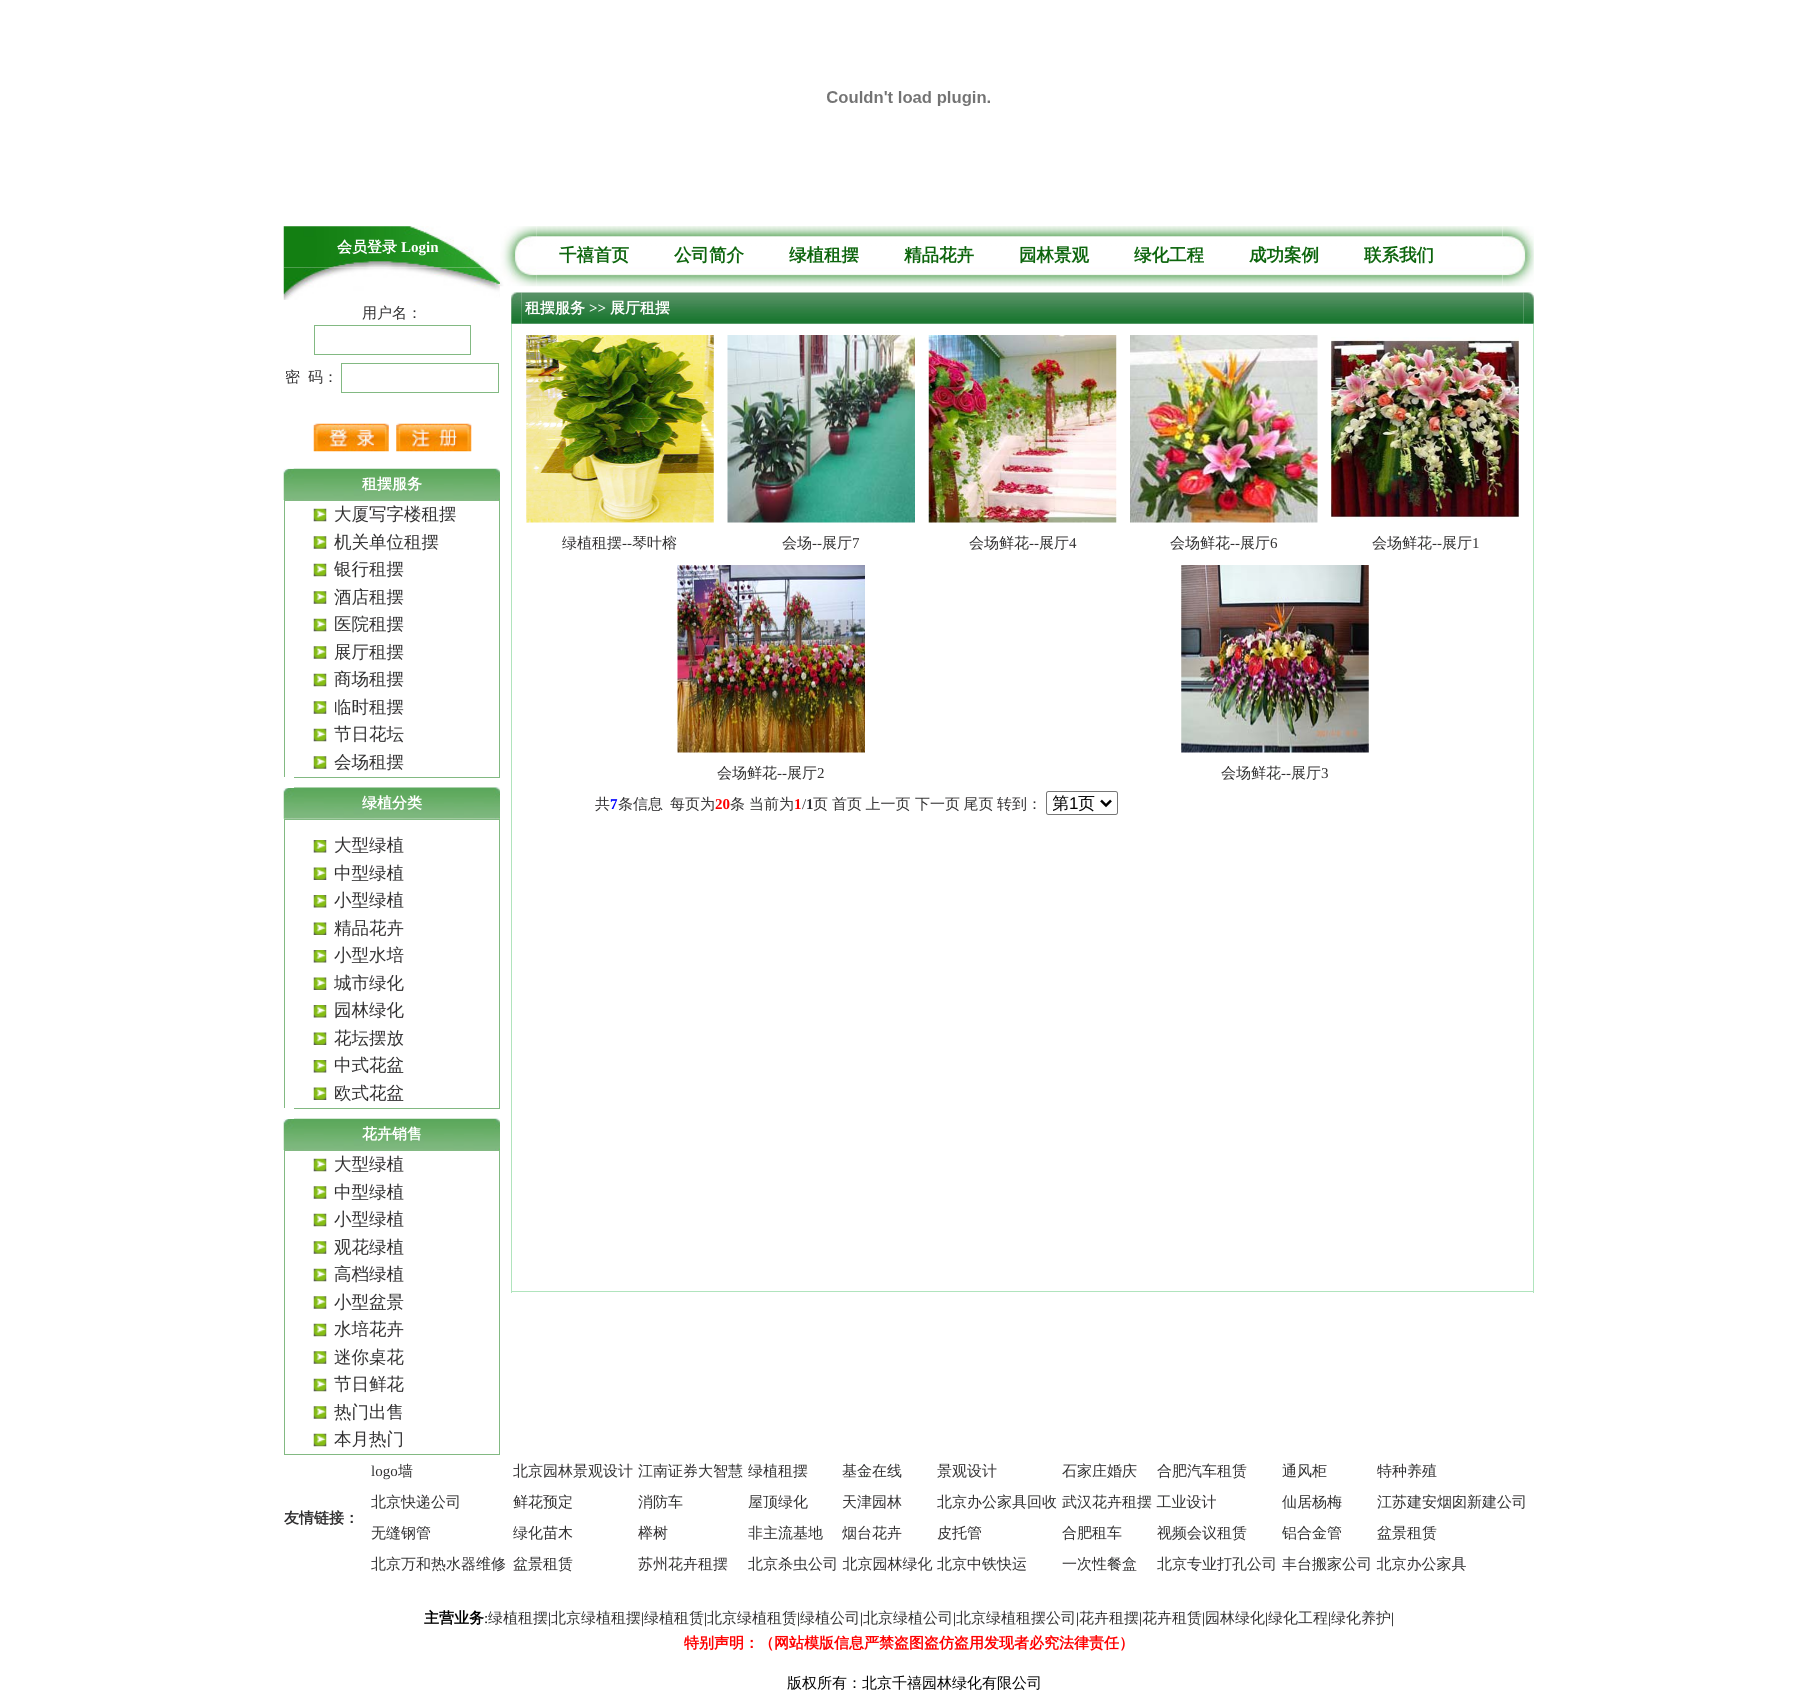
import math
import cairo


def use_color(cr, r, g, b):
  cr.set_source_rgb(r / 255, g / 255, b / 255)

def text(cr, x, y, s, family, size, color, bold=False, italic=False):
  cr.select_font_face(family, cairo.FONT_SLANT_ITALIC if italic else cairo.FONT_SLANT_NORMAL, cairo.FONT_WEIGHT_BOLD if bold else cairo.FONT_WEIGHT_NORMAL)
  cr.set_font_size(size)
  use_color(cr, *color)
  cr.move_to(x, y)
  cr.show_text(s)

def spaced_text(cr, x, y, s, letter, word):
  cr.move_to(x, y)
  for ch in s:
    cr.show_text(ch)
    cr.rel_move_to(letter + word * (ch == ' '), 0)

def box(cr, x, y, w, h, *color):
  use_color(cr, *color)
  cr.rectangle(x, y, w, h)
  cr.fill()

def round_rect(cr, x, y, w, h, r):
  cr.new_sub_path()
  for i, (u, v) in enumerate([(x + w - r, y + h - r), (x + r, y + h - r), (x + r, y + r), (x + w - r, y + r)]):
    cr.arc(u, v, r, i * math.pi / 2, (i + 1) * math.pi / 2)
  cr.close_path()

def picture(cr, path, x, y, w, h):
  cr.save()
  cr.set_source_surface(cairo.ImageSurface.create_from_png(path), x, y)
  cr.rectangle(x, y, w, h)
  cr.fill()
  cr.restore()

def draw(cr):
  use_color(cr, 255, 255, 255)
  cr.paint()
  picture(cr, "img_01.png", 827, 91, 163, 15)
  picture(cr, "img_02.png", 283, 226, 205, 42)
  picture(cr, "img_03.png", 283, 267, 217, 33)
  cr.rectangle(314.5, 325.5, 156, 29)
  use_color(cr, 130, 185, 130)
  cr.set_line_width(1)
  cr.stroke()
  cr.rectangle(341.5, 363.5, 157, 29)
  cr.stroke()
  picture(cr, "img_04.png", 313, 423, 76, 29)
  picture(cr, "img_05.png", 396, 423, 76, 29)
  picture(cr, "img_07.png", 283, 468, 217, 32)
  picture(cr, "img_06.png", 286, 468, 8, 1)
  cr.rectangle(284.5, 500.5, 215, 277)
  cr.stroke()
  picture(cr, "img_08.png", 313, 508, 14, 14)
  picture(cr, "img_09.png", 313, 536, 14, 13)
  picture(cr, "img_08.png", 313, 563, 14, 14)
  picture(cr, "img_09.png", 313, 591, 14, 13)
  picture(cr, "img_08.png", 313, 618, 14, 14)
  picture(cr, "img_09.png", 313, 646, 14, 13)
  picture(cr, "img_08.png", 313, 673, 14, 14)
  picture(cr, "img_09.png", 313, 701, 14, 13)
  picture(cr, "img_08.png", 313, 728, 14, 14)
  picture(cr, "img_09.png", 313, 756, 14, 13)
  picture(cr, "img_10.png", 283, 787, 217, 32)
  box(cr, 284, 777, 10, 11, 255, 255, 255)
  cr.rectangle(284.5, 819.5, 215, 289)
  use_color(cr, 130, 185, 130)
  cr.stroke()
  picture(cr, "img_11.png", 313, 840, 14, 13)
  picture(cr, "img_12.png", 313, 867, 14, 13)
  picture(cr, "img_11.png", 313, 895, 14, 13)
  picture(cr, "img_12.png", 313, 922, 14, 13)
  picture(cr, "img_11.png", 313, 950, 14, 13)
  picture(cr, "img_12.png", 313, 977, 14, 13)
  picture(cr, "img_11.png", 313, 1005, 14, 13)
  picture(cr, "img_12.png", 313, 1032, 14, 13)
  picture(cr, "img_11.png", 313, 1060, 14, 13)
  picture(cr, "img_12.png", 313, 1087, 14, 13)
  picture(cr, "img_07.png", 283, 1118, 217, 32)
  box(cr, 284, 1108, 10, 11, 255, 255, 255)
  cr.rectangle(284.5, 1150.5, 215, 304)
  use_color(cr, 130, 185, 130)
  cr.stroke()
  picture(cr, "img_08.png", 313, 1158, 14, 14)
  picture(cr, "img_09.png", 313, 1186, 14, 13)
  picture(cr, "img_08.png", 313, 1213, 14, 14)
  picture(cr, "img_09.png", 313, 1241, 14, 13)
  picture(cr, "img_08.png", 313, 1268, 14, 14)
  picture(cr, "img_09.png", 313, 1296, 14, 13)
  picture(cr, "img_08.png", 313, 1323, 14, 14)
  picture(cr, "img_09.png", 313, 1351, 14, 13)
  picture(cr, "img_08.png", 313, 1378, 14, 14)
  picture(cr, "img_09.png", 313, 1406, 14, 13)
  picture(cr, "img_08.png", 313, 1433, 14, 14)
  picture(cr, "img_14.png", 536, 226, 967, 61)
  picture(cr, "img_13.png", 500, 226, 37, 61)
  picture(cr, "img_15.png", 1502, 226, 32, 61)
  picture(cr, "img_17.png", 521, 292, 1003, 32)
  picture(cr, "img_16.png", 511, 292, 11, 32)
  picture(cr, "img_18.png", 1523, 292, 11, 32)
  box(cr, 1533, 324, 1, 969, 176, 228, 189)
  box(cr, 511, 1291, 1023, 1, 176, 228, 189)
  box(cr, 511, 324, 1, 969, 176, 228, 189)
  picture(cr, "img_19.png", 526, 335, 188, 188)
  picture(cr, "img_20.png", 727, 335, 188, 188)
  picture(cr, "img_21.png", 928, 335, 189, 188)
  picture(cr, "img_22.png", 1130, 335, 188, 188)
  picture(cr, "img_23.png", 1331, 337, 188, 183)
  picture(cr, "img_24.png", 677, 565, 188, 188)
  picture(cr, "img_25.png", 1181, 565, 188, 188)
  round_rect(cr, 1046.5, 791.5, 71, 23, 2)
  use_color(cr, 118, 118, 118)
  cr.stroke()
  cr.new_path()
  cr.move_to(1101, 800.5)
  cr.line_to(1106, 805.5)
  cr.line_to(1111, 800.5)
  use_color(cr, 0, 0, 0)
  cr.set_line_width(2.5)
  cr.stroke()
  text(cr, 337, 252, "会员登录", "WenQuanYi Zen Hei", 15, (255, 255, 255), bold=True)
  text(cr, 401, 252, "Login", "Liberation Serif", 15, (255, 255, 255), bold=True)
  text(cr, 362, 318, "用户名：", "WenQuanYi Zen Hei Medium", 15, (49, 48, 49))
  text(cr, 285, 382, "密", "WenQuanYi Zen Hei Medium", 15, (49, 48, 49))
  text(cr, 308, 382, "码：", "WenQuanYi Zen Hei Medium", 15, (49, 48, 49))
  text(cr, 362, 489, "租摆服务", "WenQuanYi Zen Hei", 15, (255, 255, 255), bold=True)
  text(cr, 334, 520, "大厦写字楼租摆", "WenQuanYi Zen Hei Medium", 17.5, (49, 48, 49))
  text(cr, 334, 548, "机关单位租摆", "WenQuanYi Zen Hei Medium", 17.5, (49, 48, 49))
  text(cr, 334, 575, "银行租摆", "WenQuanYi Zen Hei Medium", 17.5, (49, 48, 49))
  text(cr, 334, 603, "酒店租摆", "WenQuanYi Zen Hei Medium", 17.5, (49, 48, 49))
  text(cr, 334, 630, "医院租摆", "WenQuanYi Zen Hei Medium", 17.5, (49, 48, 49))
  text(cr, 334, 658, "展厅租摆", "WenQuanYi Zen Hei Medium", 17.5, (49, 48, 49))
  text(cr, 334, 685, "商场租摆", "WenQuanYi Zen Hei Medium", 17.5, (49, 48, 49))
  text(cr, 334, 713, "临时租摆", "WenQuanYi Zen Hei Medium", 17.5, (49, 48, 49))
  text(cr, 334, 740, "节日花坛", "WenQuanYi Zen Hei Medium", 17.5, (49, 48, 49))
  text(cr, 334, 768, "会场租摆", "WenQuanYi Zen Hei Medium", 17.5, (49, 48, 49))
  text(cr, 362, 808, "绿植分类", "WenQuanYi Zen Hei", 15, (255, 255, 255), bold=True)
  text(cr, 334, 851, "大型绿植", "WenQuanYi Zen Hei Medium", 17.5, (49, 48, 49))
  text(cr, 334, 879, "中型绿植", "WenQuanYi Zen Hei Medium", 17.5, (49, 48, 49))
  text(cr, 334, 906, "小型绿植", "WenQuanYi Zen Hei Medium", 17.5, (49, 48, 49))
  text(cr, 334, 934, "精品花卉", "WenQuanYi Zen Hei Medium", 17.5, (49, 48, 49))
  text(cr, 334, 961, "小型水培", "WenQuanYi Zen Hei Medium", 17.5, (49, 48, 49))
  text(cr, 334, 989, "城市绿化", "WenQuanYi Zen Hei Medium", 17.5, (49, 48, 49))
  text(cr, 334, 1016, "园林绿化", "WenQuanYi Zen Hei Medium", 17.5, (49, 48, 49))
  text(cr, 334, 1044, "花坛摆放", "WenQuanYi Zen Hei Medium", 17.5, (49, 48, 49))
  text(cr, 334, 1071, "中式花盆", "WenQuanYi Zen Hei Medium", 17.5, (49, 48, 49))
  text(cr, 334, 1099, "欧式花盆", "WenQuanYi Zen Hei Medium", 17.5, (49, 48, 49))
  text(cr, 362, 1139, "花卉销售", "WenQuanYi Zen Hei", 15, (255, 255, 255), bold=True)
  text(cr, 334, 1170, "大型绿植", "WenQuanYi Zen Hei Medium", 17.5, (49, 48, 49))
  text(cr, 334, 1198, "中型绿植", "WenQuanYi Zen Hei Medium", 17.5, (49, 48, 49))
  text(cr, 334, 1225, "小型绿植", "WenQuanYi Zen Hei Medium", 17.5, (49, 48, 49))
  text(cr, 334, 1253, "观花绿植", "WenQuanYi Zen Hei Medium", 17.5, (49, 48, 49))
  text(cr, 334, 1280, "高档绿植", "WenQuanYi Zen Hei Medium", 17.5, (49, 48, 49))
  text(cr, 334, 1308, "小型盆景", "WenQuanYi Zen Hei Medium", 17.5, (49, 48, 49))
  text(cr, 334, 1335, "水培花卉", "WenQuanYi Zen Hei Medium", 17.5, (49, 48, 49))
  text(cr, 334, 1363, "迷你桌花", "WenQuanYi Zen Hei Medium", 17.5, (49, 48, 49))
  text(cr, 334, 1390, "节日鲜花", "WenQuanYi Zen Hei Medium", 17.5, (49, 48, 49))
  text(cr, 334, 1418, "热门出售", "WenQuanYi Zen Hei Medium", 17.5, (49, 48, 49))
  text(cr, 334, 1445, "本月热门", "WenQuanYi Zen Hei Medium", 17.5, (49, 48, 49))
  text(cr, 559, 261, "千禧首页", "WenQuanYi Zen Hei", 17.5, (13, 101, 13), bold=True)
  text(cr, 674, 261, "公司简介", "WenQuanYi Zen Hei", 17.5, (13, 101, 13), bold=True)
  text(cr, 789, 261, "绿植租摆", "WenQuanYi Zen Hei", 17.5, (13, 101, 13), bold=True)
  text(cr, 904, 261, "精品花卉", "WenQuanYi Zen Hei", 17.5, (13, 101, 13), bold=True)
  text(cr, 1019, 261, "园林景观", "WenQuanYi Zen Hei", 17.5, (13, 101, 13), bold=True)
  text(cr, 1134, 261, "绿化工程", "WenQuanYi Zen Hei", 17.5, (13, 101, 13), bold=True)
  text(cr, 1249, 261, "成功案例", "WenQuanYi Zen Hei", 17.5, (13, 101, 13), bold=True)
  text(cr, 1364, 261, "联系我们", "WenQuanYi Zen Hei", 17.5, (13, 101, 13), bold=True)
  text(cr, 525, 313, "租摆服务", "WenQuanYi Zen Hei", 15, (255, 255, 255), bold=True)
  text(cr, 589, 313, ">>", "Liberation Serif", 15, (255, 255, 255), bold=True)
  text(cr, 610, 313, "展厅租摆", "WenQuanYi Zen Hei", 15, (255, 255, 255), bold=True)
  text(cr, 562, 548, "绿植租摆", "WenQuanYi Zen Hei Medium", 15, (49, 48, 49))
  text(cr, 622, 548, "--", "Liberation Serif", 15, (49, 48, 49))
  text(cr, 632, 548, "琴叶榕", "WenQuanYi Zen Hei Medium", 15, (49, 48, 49))
  text(cr, 782, 548, "会场", "WenQuanYi Zen Hei Medium", 15, (49, 48, 49))
  text(cr, 812, 548, "--", "Liberation Serif", 15, (49, 48, 49))
  text(cr, 822, 548, "展厅", "WenQuanYi Zen Hei Medium", 15, (49, 48, 49))
  text(cr, 852, 548, "7", "Liberation Serif", 15, (49, 48, 49))
  text(cr, 969, 548, "会场鲜花", "WenQuanYi Zen Hei Medium", 15, (49, 48, 49))
  text(cr, 1029, 548, "--", "Liberation Serif", 15, (49, 48, 49))
  text(cr, 1039, 548, "展厅", "WenQuanYi Zen Hei Medium", 15, (49, 48, 49))
  text(cr, 1069, 548, "4", "Liberation Serif", 15, (49, 48, 49))
  text(cr, 1170, 548, "会场鲜花", "WenQuanYi Zen Hei Medium", 15, (49, 48, 49))
  text(cr, 1230, 548, "--", "Liberation Serif", 15, (49, 48, 49))
  text(cr, 1240, 548, "展厅", "WenQuanYi Zen Hei Medium", 15, (49, 48, 49))
  text(cr, 1270, 548, "6", "Liberation Serif", 15, (49, 48, 49))
  text(cr, 1372, 548, "会场鲜花", "WenQuanYi Zen Hei Medium", 15, (49, 48, 49))
  text(cr, 1432, 548, "--", "Liberation Serif", 15, (49, 48, 49))
  text(cr, 1442, 548, "展厅", "WenQuanYi Zen Hei Medium", 15, (49, 48, 49))
  text(cr, 1472, 548, "1", "Liberation Serif", 15, (49, 48, 49))
  text(cr, 717, 778, "会场鲜花", "WenQuanYi Zen Hei Medium", 15, (49, 48, 49))
  text(cr, 777, 778, "--", "Liberation Serif", 15, (49, 48, 49))
  text(cr, 787, 778, "展厅", "WenQuanYi Zen Hei Medium", 15, (49, 48, 49))
  text(cr, 817, 778, "2", "Liberation Serif", 15, (49, 48, 49))
  text(cr, 1221, 778, "会场鲜花", "WenQuanYi Zen Hei Medium", 15, (49, 48, 49))
  text(cr, 1281, 778, "--", "Liberation Serif", 15, (49, 48, 49))
  text(cr, 1291, 778, "展厅", "WenQuanYi Zen Hei Medium", 15, (49, 48, 49))
  text(cr, 1321, 778, "3", "Liberation Serif", 15, (49, 48, 49))
  text(cr, 595, 809, "共", "WenQuanYi Zen Hei Medium", 15, (49, 48, 49))
  text(cr, 610, 809, "7", "Liberation Serif", 15, (0, 0, 255), bold=True)
  text(cr, 618, 809, "条信息", "WenQuanYi Zen Hei Medium", 15, (49, 48, 49))
  text(cr, 670, 809, "每页为", "WenQuanYi Zen Hei Medium", 15, (49, 48, 49))
  text(cr, 715, 809, "20", "Liberation Serif", 15, (255, 0, 0), bold=True)
  text(cr, 730, 809, "条", "WenQuanYi Zen Hei Medium", 15, (49, 48, 49))
  text(cr, 749, 809, "当前为", "WenQuanYi Zen Hei Medium", 15, (49, 48, 49))
  text(cr, 794, 809, "1", "Liberation Serif", 15, (255, 0, 0), bold=True)
  text(cr, 802, 809, "/", "Liberation Serif", 15, (49, 48, 49))
  text(cr, 806, 809, "1", "Liberation Serif", 15, (49, 48, 49), bold=True)
  text(cr, 813, 809, "页", "WenQuanYi Zen Hei Medium", 15, (49, 48, 49))
  spaced_text(cr, 832, 809, "首页 上一页", 0, -1)
  spaced_text(cr, 915, 809, "下一页 尾页", 0, -1)
  text(cr, 997, 809, "转到：", "WenQuanYi Zen Hei Medium", 15, (49, 48, 49))
  cr.save()
  cr.rectangle(1053, 793, 43, 21)
  cr.clip()
  text(cr, 1052, 809, "第", "WenQuanYi Zen Hei Medium", 17, (0, 0, 0))
  cr.restore()
  text(cr, 1069, 809, "1", "Liberation Sans", 17, (0, 0, 0))
  text(cr, 1078, 809, "页", "WenQuanYi Zen Hei Medium", 17, (0, 0, 0))
  text(cr, 284, 1523, "友情链接：", "WenQuanYi Zen Hei", 15, (49, 48, 49), bold=True)
  text(cr, 371, 1476, "logo", "Liberation Serif", 15, (49, 48, 49))
  text(cr, 398, 1476, "墙", "WenQuanYi Zen Hei Medium", 15, (49, 48, 49))
  text(cr, 513, 1476, "北京园林景观设计", "WenQuanYi Zen Hei Medium", 15, (49, 48, 49))
  text(cr, 638, 1476, "江南证券大智慧", "WenQuanYi Zen Hei Medium", 15, (49, 48, 49))
  text(cr, 748, 1476, "绿植租摆", "WenQuanYi Zen Hei Medium", 15, (49, 48, 49))
  text(cr, 842, 1476, "基金在线", "WenQuanYi Zen Hei Medium", 15, (49, 48, 49))
  text(cr, 937, 1476, "景观设计", "WenQuanYi Zen Hei Medium", 15, (49, 48, 49))
  text(cr, 1062, 1476, "石家庄婚庆", "WenQuanYi Zen Hei Medium", 15, (49, 48, 49))
  text(cr, 1157, 1476, "合肥汽车租赁", "WenQuanYi Zen Hei Medium", 15, (49, 48, 49))
  text(cr, 1282, 1476, "通风柜", "WenQuanYi Zen Hei Medium", 15, (49, 48, 49))
  text(cr, 1377, 1476, "特种养殖", "WenQuanYi Zen Hei Medium", 15, (49, 48, 49))
  text(cr, 371, 1507, "北京快递公司", "WenQuanYi Zen Hei Medium", 15, (49, 48, 49))
  text(cr, 513, 1507, "鲜花预定", "WenQuanYi Zen Hei Medium", 15, (49, 48, 49))
  text(cr, 638, 1507, "消防车", "WenQuanYi Zen Hei Medium", 15, (49, 48, 49))
  text(cr, 748, 1507, "屋顶绿化", "WenQuanYi Zen Hei Medium", 15, (49, 48, 49))
  text(cr, 842, 1507, "天津园林", "WenQuanYi Zen Hei Medium", 15, (49, 48, 49))
  text(cr, 937, 1507, "北京办公家具回收", "WenQuanYi Zen Hei Medium", 15, (49, 48, 49))
  text(cr, 1062, 1507, "武汉花卉租摆 工业设计", "WenQuanYi Zen Hei Medium", 15, (49, 48, 49))
  text(cr, 1282, 1507, "仙居杨梅", "WenQuanYi Zen Hei Medium", 15, (49, 48, 49))
  text(cr, 1377, 1507, "江苏建安烟囱新建公司", "WenQuanYi Zen Hei Medium", 15, (49, 48, 49))
  text(cr, 371, 1538, "无缝钢管", "WenQuanYi Zen Hei Medium", 15, (49, 48, 49))
  text(cr, 513, 1538, "绿化苗木", "WenQuanYi Zen Hei Medium", 15, (49, 48, 49))
  text(cr, 638, 1538, "榉树", "WenQuanYi Zen Hei Medium", 15, (49, 48, 49))
  text(cr, 748, 1538, "非主流基地", "WenQuanYi Zen Hei Medium", 15, (49, 48, 49))
  text(cr, 842, 1538, "烟台花卉", "WenQuanYi Zen Hei Medium", 15, (49, 48, 49))
  text(cr, 937, 1538, "皮托管", "WenQuanYi Zen Hei Medium", 15, (49, 48, 49))
  text(cr, 1062, 1538, "合肥租车", "WenQuanYi Zen Hei Medium", 15, (49, 48, 49))
  text(cr, 1157, 1538, "视频会议租赁", "WenQuanYi Zen Hei Medium", 15, (49, 48, 49))
  text(cr, 1282, 1538, "铝合金管", "WenQuanYi Zen Hei Medium", 15, (49, 48, 49))
  text(cr, 1377, 1538, "盆景租赁", "WenQuanYi Zen Hei Medium", 15, (49, 48, 49))
  text(cr, 371, 1569, "北京万和热水器维修", "WenQuanYi Zen Hei Medium", 15, (49, 48, 49))
  text(cr, 513, 1569, "盆景租赁", "WenQuanYi Zen Hei Medium", 15, (49, 48, 49))
  text(cr, 638, 1569, "苏州花卉租摆", "WenQuanYi Zen Hei Medium", 15, (49, 48, 49))
  text(cr, 748, 1569, "北京杀虫公司 北京园林绿化 北京中铁快运", "WenQuanYi Zen Hei Medium", 15, (49, 48, 49))
  text(cr, 1062, 1569, "一次性餐盒", "WenQuanYi Zen Hei Medium", 15, (49, 48, 49))
  text(cr, 1157, 1569, "北京专业打孔公司", "WenQuanYi Zen Hei Medium", 15, (49, 48, 49))
  text(cr, 1282, 1569, "丰台搬家公司 北京办公家具", "WenQuanYi Zen Hei Medium", 15, (49, 48, 49))
  text(cr, 424, 1623, "主营业务", "WenQuanYi Zen Hei", 15, (0, 0, 0), bold=True)
  text(cr, 484, 1623, ":", "Liberation Serif", 15, (0, 0, 0))
  text(cr, 488, 1623, "绿植租摆", "WenQuanYi Zen Hei Medium", 15, (49, 48, 49))
  text(cr, 548, 1623, "|", "Liberation Serif", 15, (0, 0, 0))
  text(cr, 551, 1623, "北京绿植租摆", "WenQuanYi Zen Hei Medium", 15, (49, 48, 49))
  text(cr, 641, 1623, "|", "Liberation Serif", 15, (0, 0, 0))
  text(cr, 644, 1623, "绿植租赁", "WenQuanYi Zen Hei Medium", 15, (49, 48, 49))
  text(cr, 704, 1623, "|", "Liberation Serif", 15, (0, 0, 0))
  text(cr, 707, 1623, "北京绿植租赁", "WenQuanYi Zen Hei Medium", 15, (49, 48, 49))
  text(cr, 797, 1623, "|", "Liberation Serif", 15, (0, 0, 0))
  text(cr, 800, 1623, "绿植公司", "WenQuanYi Zen Hei Medium", 15, (49, 48, 49))
  text(cr, 860, 1623, "|", "Liberation Serif", 15, (0, 0, 0))
  text(cr, 863, 1623, "北京绿植公司", "WenQuanYi Zen Hei Medium", 15, (49, 48, 49))
  text(cr, 953, 1623, "|", "Liberation Serif", 15, (0, 0, 0))
  text(cr, 956, 1623, "北京绿植租摆公司", "WenQuanYi Zen Hei Medium", 15, (49, 48, 49))
  text(cr, 1076, 1623, "|", "Liberation Serif", 15, (0, 0, 0))
  text(cr, 1079, 1623, "花卉租摆", "WenQuanYi Zen Hei Medium", 15, (49, 48, 49))
  text(cr, 1139, 1623, "|", "Liberation Serif", 15, (0, 0, 0))
  text(cr, 1142, 1623, "花卉租赁", "WenQuanYi Zen Hei Medium", 15, (49, 48, 49))
  text(cr, 1202, 1623, "|", "Liberation Serif", 15, (0, 0, 0))
  text(cr, 1205, 1623, "园林绿化", "WenQuanYi Zen Hei Medium", 15, (49, 48, 49))
  text(cr, 1265, 1623, "|", "Liberation Serif", 15, (0, 0, 0))
  text(cr, 1268, 1623, "绿化工程", "WenQuanYi Zen Hei Medium", 15, (49, 48, 49))
  text(cr, 1328, 1623, "|", "Liberation Serif", 15, (0, 0, 0))
  text(cr, 1331, 1623, "绿化养护", "WenQuanYi Zen Hei Medium", 15, (49, 48, 49))
  text(cr, 1391, 1623, "|", "Liberation Serif", 15, (0, 0, 0))
  text(cr, 684, 1648, "特别声明：（网站模版信息严禁盗图盗仿盗用发现者必究法律责任）", "WenQuanYi Zen Hei", 15, (255, 0, 0), bold=True)
  text(cr, 787, 1688, "版权所有：北京千禧园林绿化有限公司", "WenQuanYi Zen Hei Medium", 15, (0, 0, 0))


surface = cairo.ImageSurface(cairo.FORMAT_RGB24, 1817, 1707)
cr = cairo.Context(surface)
options = cairo.FontOptions()
options.set_hint_metrics(cairo.HINT_METRICS_OFF)
options.set_hint_style(cairo.HINT_STYLE_NONE)
cr.set_font_options(options)
cr.set_miter_limit(4)
draw(cr)
surface.write_to_png("out.png")
